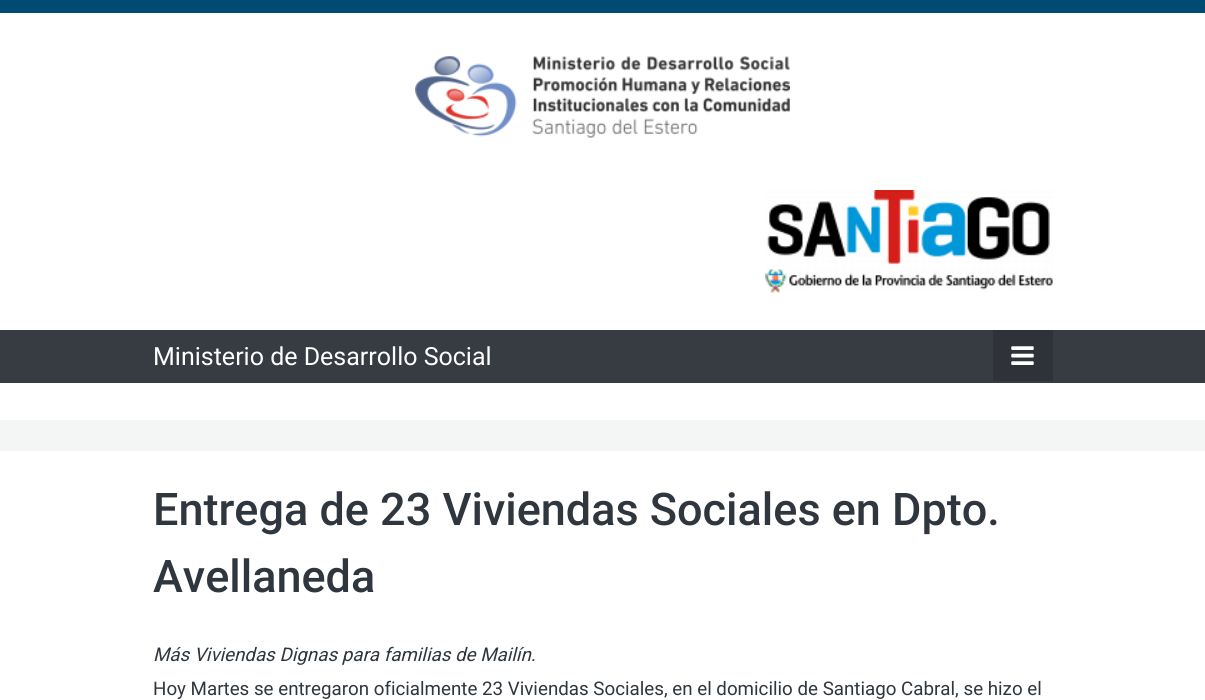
import math
import cairo


def use_color(cr, r, g, b):
  cr.set_source_rgb(r / 255, g / 255, b / 255)

def text(cr, x, y, s, family, size, color, bold=False, italic=False):
  cr.select_font_face(family, cairo.FONT_SLANT_ITALIC if italic else cairo.FONT_SLANT_NORMAL, cairo.FONT_WEIGHT_BOLD if bold else cairo.FONT_WEIGHT_NORMAL)
  cr.set_font_size(size)
  use_color(cr, *color)
  cr.move_to(x, y)
  cr.show_text(s)

def box(cr, x, y, w, h, *color):
  use_color(cr, *color)
  cr.rectangle(x, y, w, h)
  cr.fill()

def picture(cr, path, x, y, w, h):
  cr.save()
  cr.set_source_surface(cairo.ImageSurface.create_from_png(path), x, y)
  cr.rectangle(x, y, w, h)
  cr.fill()
  cr.restore()

def draw(cr):
  use_color(cr, 255, 255, 255)
  cr.paint()
  box(cr, 0, 0, 1205, 13, 0, 75, 114)
  picture(cr, "img_01.png", 415, 56, 375, 82)
  picture(cr, "img_02.png", 765, 190, 288, 103)
  box(cr, 0, 330, 1205, 53, 55, 60, 67)
  box(cr, 993, 330, 60, 51, 47, 51, 57)
  picture(cr, "img_03.png", 1011, 346, 23, 19)
  box(cr, 0, 420, 1205, 31, 244, 245, 245)
  text(cr, 153, 365, "Ministerio de Desarrollo Social", "Roboto", 25, (255, 255, 255))
  text(cr, 153, 525, "Entrega de 23 Viviendas Sociales en Dpto.", "Roboto Medium", 45, (47, 54, 62))
  text(cr, 153, 592, "Avellaneda", "Roboto Medium", 45, (47, 54, 62))
  text(cr, 153, 661, "Más Viviendas Dignas para familias de Mailín.", "Roboto", 18.75, (47, 54, 62), italic=True)
  text(cr, 153, 695, "Hoy Martes se entregaron oficialmente 23 Viviendas Sociales, en el domicilio de Santiago Cabral, se hizo el", "Roboto", 18.75, (47, 54, 62))


surface = cairo.ImageSurface(cairo.FORMAT_RGB24, 1205, 700)
cr = cairo.Context(surface)
options = cairo.FontOptions()
options.set_hint_metrics(cairo.HINT_METRICS_OFF)
options.set_hint_style(cairo.HINT_STYLE_NONE)
cr.set_font_options(options)
cr.set_miter_limit(4)
draw(cr)
surface.write_to_png("out.png")
